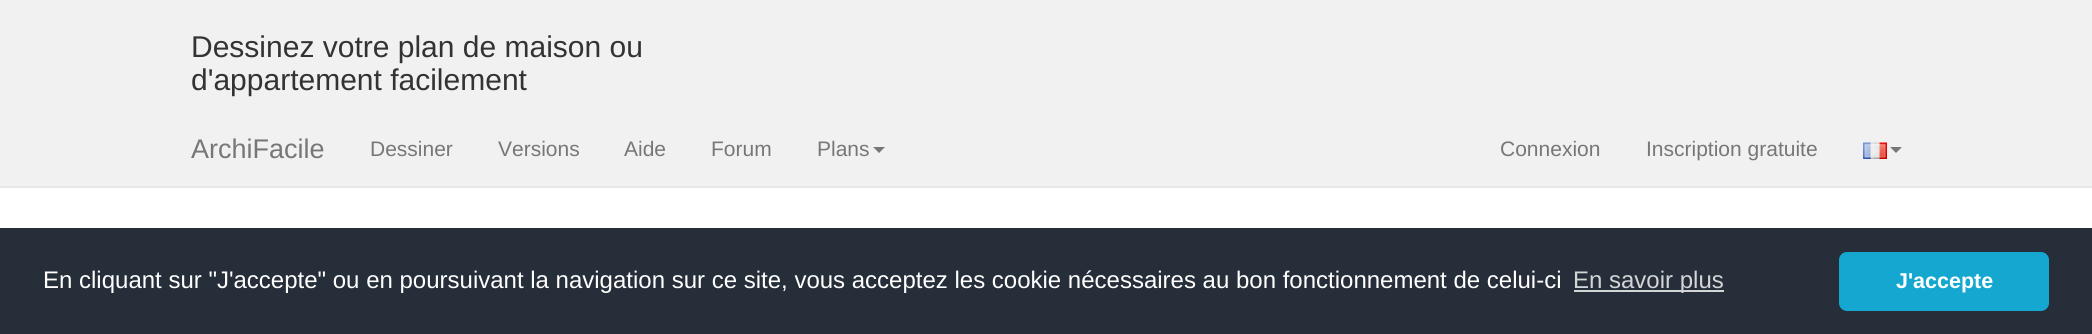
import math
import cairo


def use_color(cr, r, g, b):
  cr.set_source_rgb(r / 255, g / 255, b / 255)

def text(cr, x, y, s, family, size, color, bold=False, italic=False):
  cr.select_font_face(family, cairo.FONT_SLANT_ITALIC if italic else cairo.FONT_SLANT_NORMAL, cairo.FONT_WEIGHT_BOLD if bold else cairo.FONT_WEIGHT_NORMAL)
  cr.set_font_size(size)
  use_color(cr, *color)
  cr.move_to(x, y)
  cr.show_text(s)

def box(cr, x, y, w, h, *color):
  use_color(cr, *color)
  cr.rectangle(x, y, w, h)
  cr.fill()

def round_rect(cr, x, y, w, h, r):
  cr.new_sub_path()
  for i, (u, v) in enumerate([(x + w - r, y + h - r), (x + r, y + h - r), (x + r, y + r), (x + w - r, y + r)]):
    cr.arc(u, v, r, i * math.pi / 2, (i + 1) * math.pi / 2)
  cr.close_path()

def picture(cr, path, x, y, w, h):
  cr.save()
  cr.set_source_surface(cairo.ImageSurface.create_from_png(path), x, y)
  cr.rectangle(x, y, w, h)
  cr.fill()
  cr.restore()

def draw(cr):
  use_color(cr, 255, 255, 255)
  cr.paint()
  box(cr, 0, 0, 2092, 186, 241, 241, 241)
  box(cr, 0, 186, 2092, 2, 231, 231, 231)
  use_color(cr, 119, 119, 119)
  cr.new_path()
  cr.move_to(873, 147)
  cr.line_to(885, 147)
  cr.line_to(879, 153)
  cr.close_path()
  cr.fill()
  picture(cr, "img_01.png", 1863, 142, 24, 17)
  cr.new_path()
  cr.move_to(1890, 147)
  cr.line_to(1902, 147)
  cr.line_to(1896, 153)
  cr.close_path()
  cr.fill()
  box(cr, 0, 228, 2092, 106, 37, 46, 57)
  box(cr, 1574, 290, 150, 2, 211, 213, 215)
  use_color(cr, 20, 167, 208)
  round_rect(cr, 1839, 252, 210, 59, 8)
  cr.fill()
  text(cr, 191, 57, "Dessinez votre plan de maison ou", "Liberation Sans", 30, (51, 51, 51))
  text(cr, 191, 90, "d'appartement facilement", "Liberation Sans", 30, (51, 51, 51))
  text(cr, 191, 158, "ArchiFacile", "Liberation Sans", 27, (119, 119, 119))
  text(cr, 370, 156, "Dessiner", "Liberation Sans", 21, (119, 119, 119))
  text(cr, 498, 156, "Versions", "Liberation Sans", 21, (119, 119, 119))
  text(cr, 624, 156, "Aide", "Liberation Sans", 21, (119, 119, 119))
  text(cr, 711, 156, "Forum", "Liberation Sans", 21, (119, 119, 119))
  text(cr, 817, 156, "Plans", "Liberation Sans", 21, (119, 119, 119))
  text(cr, 1500, 156, "Connexion", "Liberation Sans", 21, (119, 119, 119))
  text(cr, 1646, 156, "Inscription gratuite", "Liberation Sans", 21, (119, 119, 119))
  text(cr, 43, 288, "En cliquant sur \"J'accepte\" ou en poursuivant la navigation sur ce site, vous acceptez les cookie nécessaires au bon fonctionnement de celui-ci", "Liberation Sans", 24, (255, 255, 255))
  text(cr, 1573, 288, "En savoir plus", "Liberation Sans", 24, (211, 213, 215))
  text(cr, 1896, 288, "J'accepte", "Liberation Sans", 21.5, (255, 255, 255), bold=True)


surface = cairo.ImageSurface(cairo.FORMAT_RGB24, 2092, 334)
cr = cairo.Context(surface)
options = cairo.FontOptions()
options.set_hint_metrics(cairo.HINT_METRICS_OFF)
options.set_hint_style(cairo.HINT_STYLE_NONE)
cr.set_font_options(options)
cr.set_miter_limit(4)
draw(cr)
surface.write_to_png("out.png")
